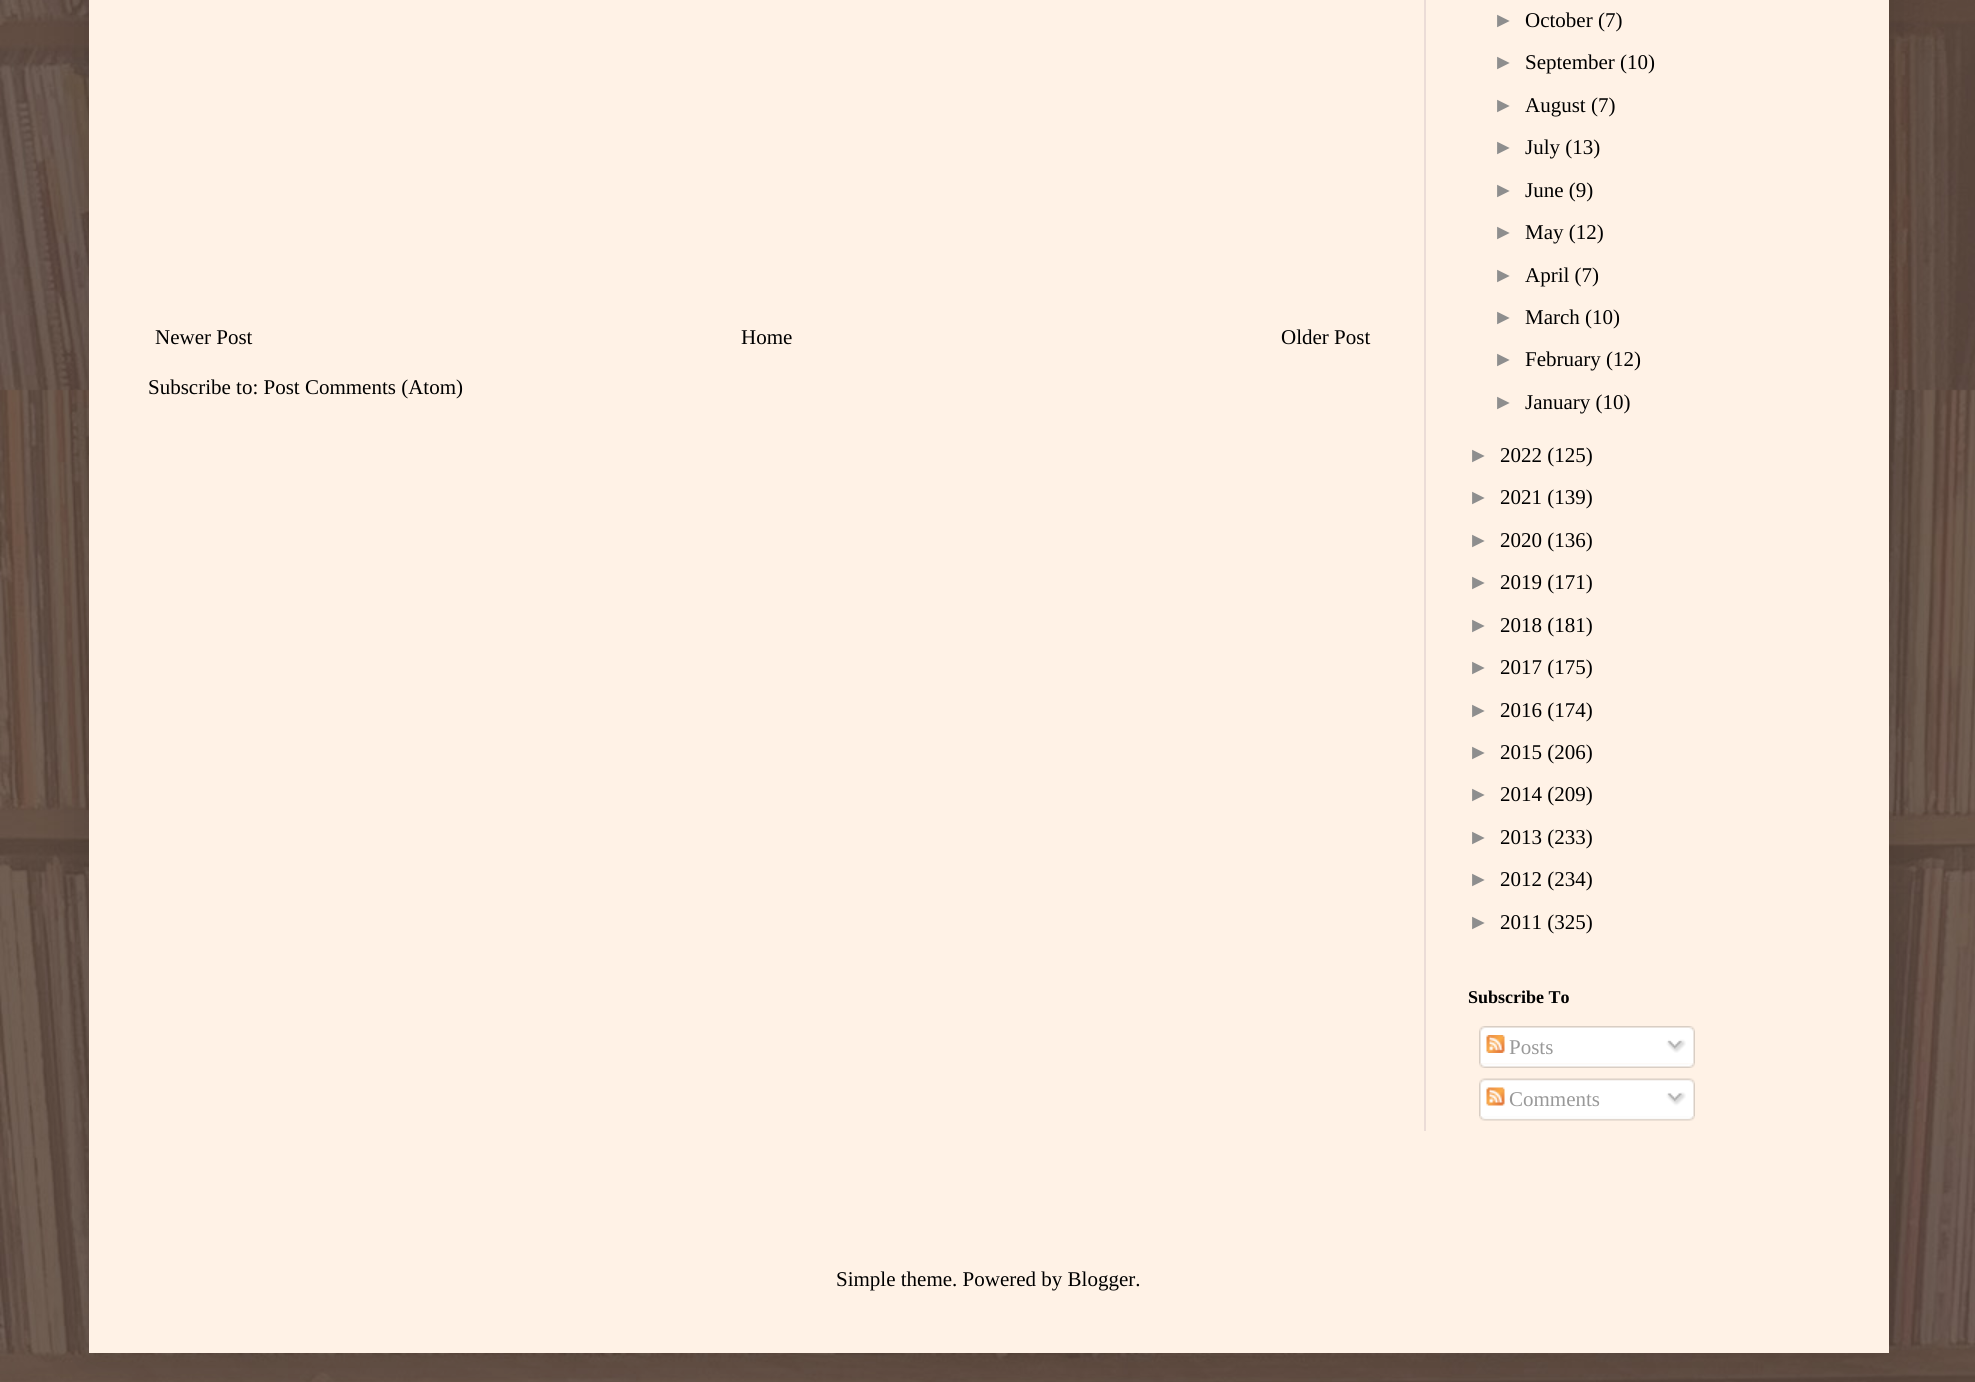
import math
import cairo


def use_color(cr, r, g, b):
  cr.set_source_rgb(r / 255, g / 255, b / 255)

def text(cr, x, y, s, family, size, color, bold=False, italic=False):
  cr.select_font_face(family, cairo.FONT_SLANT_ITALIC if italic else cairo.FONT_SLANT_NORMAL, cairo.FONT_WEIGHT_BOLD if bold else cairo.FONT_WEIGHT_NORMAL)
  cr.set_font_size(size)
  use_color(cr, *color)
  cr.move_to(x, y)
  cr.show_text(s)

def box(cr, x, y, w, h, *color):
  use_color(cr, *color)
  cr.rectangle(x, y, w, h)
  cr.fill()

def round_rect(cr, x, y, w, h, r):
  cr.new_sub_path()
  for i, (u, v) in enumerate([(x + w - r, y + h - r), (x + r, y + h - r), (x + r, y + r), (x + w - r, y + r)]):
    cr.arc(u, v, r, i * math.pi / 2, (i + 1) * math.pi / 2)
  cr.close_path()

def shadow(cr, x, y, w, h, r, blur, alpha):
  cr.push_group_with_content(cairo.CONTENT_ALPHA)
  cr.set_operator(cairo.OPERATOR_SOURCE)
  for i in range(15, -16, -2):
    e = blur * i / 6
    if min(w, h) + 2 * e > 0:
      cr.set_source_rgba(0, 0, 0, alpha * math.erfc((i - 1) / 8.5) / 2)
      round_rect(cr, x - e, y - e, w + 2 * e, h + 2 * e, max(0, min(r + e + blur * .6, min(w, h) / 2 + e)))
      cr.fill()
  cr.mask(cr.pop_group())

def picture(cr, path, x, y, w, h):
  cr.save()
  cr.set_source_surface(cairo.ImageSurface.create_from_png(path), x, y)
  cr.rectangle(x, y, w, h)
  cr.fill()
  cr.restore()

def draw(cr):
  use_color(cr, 255, 255, 255)
  cr.paint()
  picture(cr, "img_01.png", 0, 0, 1975, 1382)
  use_color(cr, 0, 0, 0)
  shadow(cr, 89, -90, 1800, 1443, 0, 30, 0.15)
  box(cr, 89, 0, 1800, 1353, 255, 242, 230)
  box(cr, 1424, 0, 2, 1131, 235, 220, 215)
  picture(cr, "img_02.png", 1479, 1026, 216, 38)
  picture(cr, "img_03.png", 1486, 1035, 19, 18)
  picture(cr, "img_04.png", 1666, 1039, 20, 14)
  picture(cr, "img_05.png", 1479, 1063, 216, 5)
  picture(cr, "img_06.png", 1479, 1078, 216, 38)
  picture(cr, "img_07.png", 1486, 1087, 19, 19)
  picture(cr, "img_08.png", 1666, 1092, 20, 14)
  picture(cr, "img_09.png", 1479, 1116, 216, 5)
  text(cr, 155, 344, "Newer Post", "Liberation Serif", 21, (0, 0, 0))
  text(cr, 741, 344, "Home", "Liberation Serif", 21, (0, 0, 0))
  text(cr, 1281, 344, "Older Post", "Liberation Serif", 21, (0, 0, 0))
  text(cr, 148, 394, "Subscribe to: Post Comments (Atom)", "Liberation Serif", 21, (0, 0, 0))
  text(cr, 1493, 27, "►", "Liberation Sans", 21, (142, 142, 142))
  text(cr, 1525, 27, "October (7)", "Liberation Serif", 21, (0, 0, 0))
  text(cr, 1493, 69, "►", "Liberation Sans", 21, (142, 142, 142))
  text(cr, 1525, 69, "September (10)", "Liberation Serif", 21, (0, 0, 0))
  text(cr, 1493, 112, "►", "Liberation Sans", 21, (142, 142, 142))
  text(cr, 1525, 112, "August (7)", "Liberation Serif", 21, (0, 0, 0))
  text(cr, 1493, 154, "►", "Liberation Sans", 21, (142, 142, 142))
  text(cr, 1525, 154, "July (13)", "Liberation Serif", 21, (0, 0, 0))
  text(cr, 1493, 197, "►", "Liberation Sans", 21, (142, 142, 142))
  text(cr, 1525, 197, "June (9)", "Liberation Serif", 21, (0, 0, 0))
  text(cr, 1493, 239, "►", "Liberation Sans", 21, (142, 142, 142))
  text(cr, 1525, 239, "May (12)", "Liberation Serif", 21, (0, 0, 0))
  text(cr, 1493, 282, "►", "Liberation Sans", 21, (142, 142, 142))
  text(cr, 1525, 282, "April (7)", "Liberation Serif", 21, (0, 0, 0))
  text(cr, 1493, 324, "►", "Liberation Sans", 21, (142, 142, 142))
  text(cr, 1525, 324, "March (10)", "Liberation Serif", 21, (0, 0, 0))
  text(cr, 1493, 366, "►", "Liberation Sans", 21, (142, 142, 142))
  text(cr, 1525, 366, "February (12)", "Liberation Serif", 21, (0, 0, 0))
  text(cr, 1493, 409, "►", "Liberation Sans", 21, (142, 142, 142))
  text(cr, 1525, 409, "January (10)", "Liberation Serif", 21, (0, 0, 0))
  text(cr, 1468, 462, "►", "Liberation Sans", 21, (142, 142, 142))
  text(cr, 1500, 462, "2022 (125)", "Liberation Serif", 21, (0, 0, 0))
  text(cr, 1468, 504, "►", "Liberation Sans", 21, (142, 142, 142))
  text(cr, 1500, 504, "2021 (139)", "Liberation Serif", 21, (0, 0, 0))
  text(cr, 1468, 547, "►", "Liberation Sans", 21, (142, 142, 142))
  text(cr, 1500, 547, "2020 (136)", "Liberation Serif", 21, (0, 0, 0))
  text(cr, 1468, 589, "►", "Liberation Sans", 21, (142, 142, 142))
  text(cr, 1500, 589, "2019 (171)", "Liberation Serif", 21, (0, 0, 0))
  text(cr, 1468, 632, "►", "Liberation Sans", 21, (142, 142, 142))
  text(cr, 1500, 632, "2018 (181)", "Liberation Serif", 21, (0, 0, 0))
  text(cr, 1468, 674, "►", "Liberation Sans", 21, (142, 142, 142))
  text(cr, 1500, 674, "2017 (175)", "Liberation Serif", 21, (0, 0, 0))
  text(cr, 1468, 717, "►", "Liberation Sans", 21, (142, 142, 142))
  text(cr, 1500, 717, "2016 (174)", "Liberation Serif", 21, (0, 0, 0))
  text(cr, 1468, 759, "►", "Liberation Sans", 21, (142, 142, 142))
  text(cr, 1500, 759, "2015 (206)", "Liberation Serif", 21, (0, 0, 0))
  text(cr, 1468, 801, "►", "Liberation Sans", 21, (142, 142, 142))
  text(cr, 1500, 801, "2014 (209)", "Liberation Serif", 21, (0, 0, 0))
  text(cr, 1468, 844, "►", "Liberation Sans", 21, (142, 142, 142))
  text(cr, 1500, 844, "2013 (233)", "Liberation Serif", 21, (0, 0, 0))
  text(cr, 1468, 886, "►", "Liberation Sans", 21, (142, 142, 142))
  text(cr, 1500, 886, "2012 (234)", "Liberation Serif", 21, (0, 0, 0))
  text(cr, 1468, 929, "►", "Liberation Sans", 21, (142, 142, 142))
  text(cr, 1500, 929, "2011 (325)", "Liberation Serif", 21, (0, 0, 0))
  text(cr, 1468, 1003, "Subscribe To", "Liberation Serif", 18, (0, 0, 0), bold=True)
  text(cr, 1509, 1054, "Posts", "Liberation Serif", 21, (153, 153, 153))
  text(cr, 1509, 1106, "Comments", "Liberation Serif", 21, (153, 153, 153))
  text(cr, 836, 1286, "Simple theme. Powered by Blogger.", "Liberation Serif", 21, (0, 0, 0))


surface = cairo.ImageSurface(cairo.FORMAT_RGB24, 1975, 1382)
cr = cairo.Context(surface)
options = cairo.FontOptions()
options.set_hint_metrics(cairo.HINT_METRICS_OFF)
options.set_hint_style(cairo.HINT_STYLE_NONE)
cr.set_font_options(options)
cr.set_miter_limit(4)
draw(cr)
surface.write_to_png("out.png")
